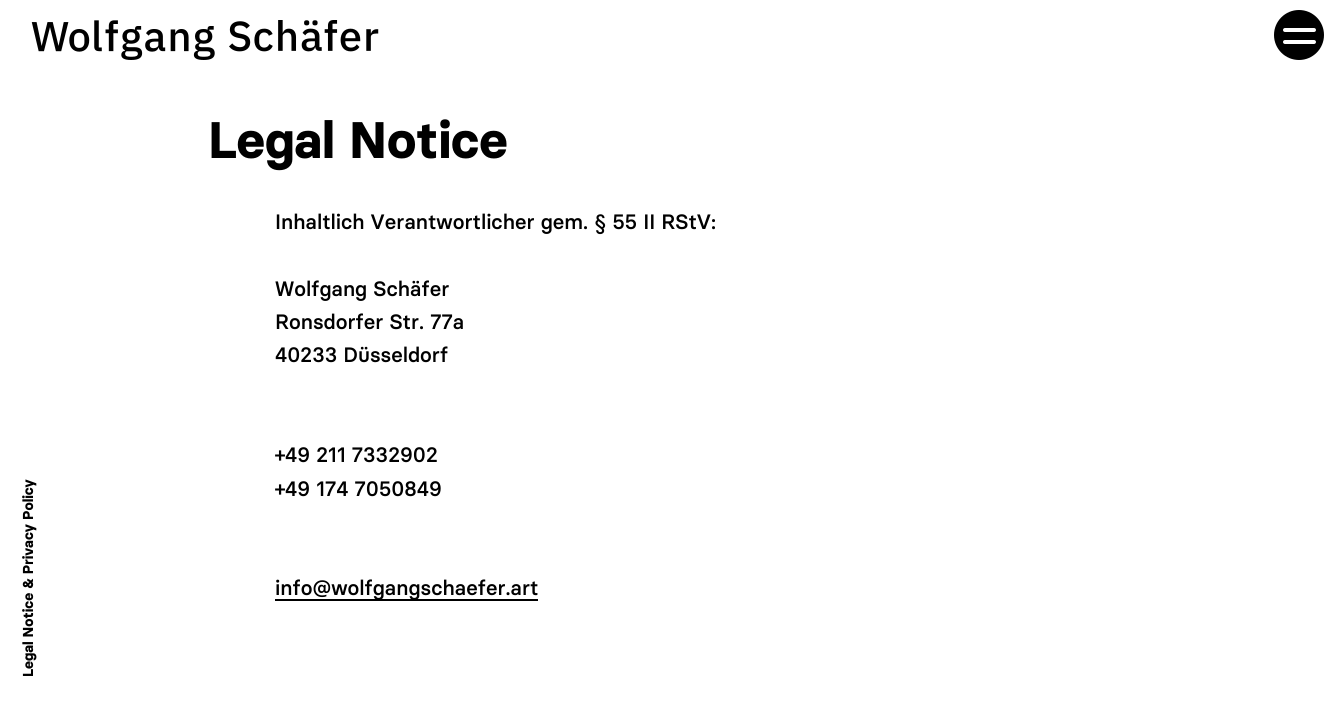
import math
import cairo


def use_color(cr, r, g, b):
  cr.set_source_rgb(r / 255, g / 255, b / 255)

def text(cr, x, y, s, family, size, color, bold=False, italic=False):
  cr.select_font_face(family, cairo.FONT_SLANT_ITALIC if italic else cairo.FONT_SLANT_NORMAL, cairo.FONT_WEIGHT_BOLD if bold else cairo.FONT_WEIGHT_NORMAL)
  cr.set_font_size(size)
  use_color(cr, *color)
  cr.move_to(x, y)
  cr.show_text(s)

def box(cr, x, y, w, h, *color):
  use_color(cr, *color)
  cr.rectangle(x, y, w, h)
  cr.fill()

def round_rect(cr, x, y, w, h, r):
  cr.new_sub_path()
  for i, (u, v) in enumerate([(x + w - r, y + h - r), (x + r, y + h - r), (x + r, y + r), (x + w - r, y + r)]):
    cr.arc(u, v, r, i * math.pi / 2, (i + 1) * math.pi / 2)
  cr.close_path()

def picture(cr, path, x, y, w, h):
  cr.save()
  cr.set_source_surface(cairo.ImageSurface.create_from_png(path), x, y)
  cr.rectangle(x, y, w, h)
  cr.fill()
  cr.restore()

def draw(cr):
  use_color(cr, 255, 255, 255)
  cr.paint()
  picture(cr, "img_01.png", 31, 20, 348, 40)
  use_color(cr, 0, 0, 0)
  cr.arc(1299, 35, 25, 0, 2 * math.pi)
  cr.fill()
  use_color(cr, 255, 255, 255)
  round_rect(cr, 1283, 28, 33, 4, 2)
  cr.fill()
  round_rect(cr, 1283, 40, 33, 4, 2)
  cr.fill()
  box(cr, 275, 599, 263, 2, 0, 0, 0)
  cr.save()
  cr.translate(33, 677)
  cr.rotate(-90 * math.pi / 180)
  text(cr, 0, 0, "Legal Notice & Privacy Policy", "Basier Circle", 14.4, (0, 0, 0), bold=True)
  cr.restore()
  text(cr, 208, 158, "Legal Notice", "Basier Circle", 51.25, (0, 0, 0), bold=True)
  text(cr, 275, 229, "Inhaltlich Verantwortlicher gem. § 55 II RStV:", "Basier Circle Medium", 20.8, (0, 0, 0))
  text(cr, 275, 296, "Wolfgang Schäfer", "Basier Circle Medium", 20.8, (0, 0, 0))
  text(cr, 275, 329, "Ronsdorfer Str. 77a", "Basier Circle Medium", 20.8, (0, 0, 0))
  text(cr, 275, 362, "40233 Düsseldorf", "Basier Circle Medium", 20.8, (0, 0, 0))
  text(cr, 275, 462, "+49 211 7332902", "Basier Circle Medium", 20.8, (0, 0, 0))
  text(cr, 275, 496, "+49 174 7050849", "Basier Circle Medium", 20.8, (0, 0, 0))
  text(cr, 275, 595, "info@wolfgangschaefer.art", "Basier Circle Medium", 20.8, (0, 0, 0))


surface = cairo.ImageSurface(cairo.FORMAT_RGB24, 1334, 713)
cr = cairo.Context(surface)
options = cairo.FontOptions()
options.set_hint_metrics(cairo.HINT_METRICS_OFF)
options.set_hint_style(cairo.HINT_STYLE_NONE)
cr.set_font_options(options)
cr.set_miter_limit(4)
draw(cr)
surface.write_to_png("out.png")
